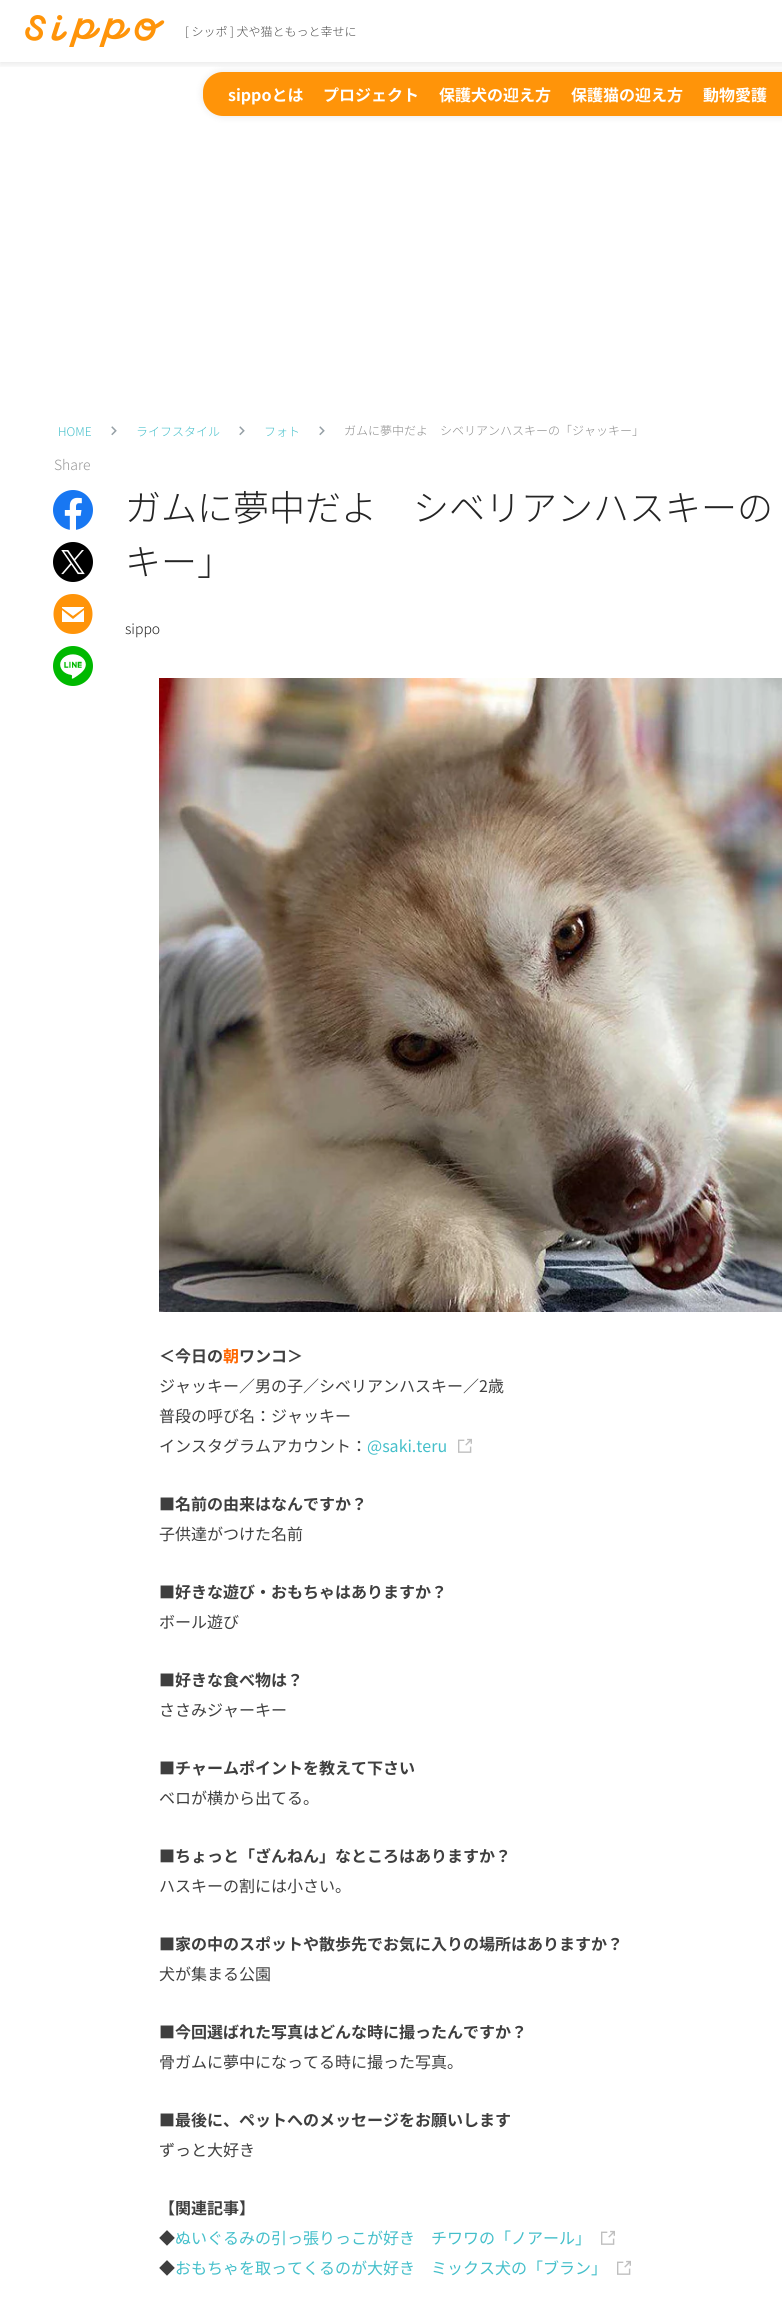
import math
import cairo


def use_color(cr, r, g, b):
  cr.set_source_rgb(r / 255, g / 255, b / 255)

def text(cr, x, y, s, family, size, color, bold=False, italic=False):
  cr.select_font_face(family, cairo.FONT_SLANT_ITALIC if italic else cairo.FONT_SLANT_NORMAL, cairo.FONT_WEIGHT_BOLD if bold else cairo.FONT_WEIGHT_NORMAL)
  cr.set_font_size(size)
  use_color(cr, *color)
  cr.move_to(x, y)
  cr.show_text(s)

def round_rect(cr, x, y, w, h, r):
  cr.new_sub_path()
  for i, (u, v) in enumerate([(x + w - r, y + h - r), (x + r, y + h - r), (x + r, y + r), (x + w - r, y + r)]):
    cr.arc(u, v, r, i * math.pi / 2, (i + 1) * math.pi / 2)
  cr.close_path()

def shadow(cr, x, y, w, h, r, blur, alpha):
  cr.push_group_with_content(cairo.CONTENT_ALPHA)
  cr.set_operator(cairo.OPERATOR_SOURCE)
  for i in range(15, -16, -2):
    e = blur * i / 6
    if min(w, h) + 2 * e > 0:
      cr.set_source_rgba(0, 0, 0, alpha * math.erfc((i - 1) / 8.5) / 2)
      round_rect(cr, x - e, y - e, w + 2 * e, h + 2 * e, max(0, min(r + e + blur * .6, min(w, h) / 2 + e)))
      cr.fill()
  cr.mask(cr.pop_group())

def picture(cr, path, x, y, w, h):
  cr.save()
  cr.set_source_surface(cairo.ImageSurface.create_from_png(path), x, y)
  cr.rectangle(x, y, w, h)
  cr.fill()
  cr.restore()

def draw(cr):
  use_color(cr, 255, 255, 255)
  cr.paint()
  cr.save()
  cr.rectangle(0, 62, 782, 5)
  cr.clip()
  use_color(cr, 0, 0, 0)
  shadow(cr, 0, 2, 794, 62, 0, 4, 0.1)
  cr.restore()
  picture(cr, "img_01.png", 25, 15, 140, 32)
  use_color(cr, 0, 0, 0)
  shadow(cr, 203, 72, 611, 44, 20, 4, 0.1)
  use_color(cr, 255, 148, 9)
  round_rect(cr, 203, 72, 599, 44, 20)
  cr.fill()
  picture(cr, "img_02.png", 111, 426, 6, 10)
  picture(cr, "img_02.png", 239, 426, 6, 10)
  picture(cr, "img_02.png", 319, 426, 6, 10)
  picture(cr, "img_03.png", 53, 490, 40, 40)
  picture(cr, "img_04.png", 53, 542, 40, 40)
  cr.new_path()
  cr.move_to(73, 594)
  cr.curve_to(47, 594, 47, 634, 73, 634)
  cr.curve_to(99, 634, 99, 594, 73, 594)
  cr.close_path()
  cr.move_to(84, 622)
  cr.line_to(62, 622)
  cr.line_to(62, 610)
  cr.line_to(73, 619)
  cr.line_to(84, 610)
  cr.close_path()
  cr.move_to(84, 608)
  cr.line_to(73, 616)
  cr.line_to(62, 608)
  cr.line_to(62, 607)
  cr.line_to(84, 607)
  cr.close_path()
  cr.fill()
  picture(cr, "img_05.png", 53, 646, 40, 40)
  picture(cr, "img_06.png", 159, 678, 623, 634)
  picture(cr, "img_07.png", 458, 1438, 14, 15)
  picture(cr, "img_07.png", 601, 2230, 14, 15)
  picture(cr, "img_07.png", 617, 2260, 14, 15)
  text(cr, 185, 36, "[ シッポ ] 犬や猫ともっと幸せに", "Noto Sans JP Light", 12, (77, 77, 77))
  text(cr, 228, 101, "sippoとは", "Noto Sans JP", 16, (255, 255, 255), bold=True)
  text(cr, 323, 101, "プロジェクト", "Noto Sans JP", 16, (255, 255, 255), bold=True)
  text(cr, 439, 101, "保護犬の迎え方", "Noto Sans JP", 16, (255, 255, 255), bold=True)
  text(cr, 571, 101, "保護猫の迎え方", "Noto Sans JP", 16, (255, 255, 255), bold=True)
  text(cr, 703, 101, "動物愛護", "Noto Sans JP", 16, (255, 255, 255), bold=True)
  text(cr, 58, 436, "HOME", "Noto Sans JP Light", 12, (68, 191, 202))
  text(cr, 136, 436, "ライフスタイル", "Noto Sans JP Light", 12, (68, 191, 202))
  text(cr, 264, 436, "フォト", "Noto Sans JP Light", 12, (68, 191, 202))
  text(cr, 344, 435, "ガムに夢中だよ　シベリアンハスキーの「ジャッキー」", "Noto Sans JP Light", 12, (140, 140, 140))
  text(cr, 54, 470, "Share", "Noto Sans JP Light", 14, (151, 151, 151))
  text(cr, 125, 521, "ガムに夢中だよ　シベリアンハスキーの", "Noto Sans JP Light", 36, (36, 36, 36))
  text(cr, 125, 575, "キー」", "Noto Sans JP Light", 36, (36, 36, 36))
  text(cr, 125, 634, "sippo", "Noto Sans JP Light", 14, (36, 36, 36))
  text(cr, 159, 1362, "＜今日の", "Noto Sans JP", 16, (63, 63, 63), bold=True)
  text(cr, 223, 1362, "朝", "Noto Sans JP", 16, (255, 102, 0), bold=True)
  text(cr, 239, 1362, "ワンコ＞", "Noto Sans JP", 16, (63, 63, 63), bold=True)
  text(cr, 159, 1392, "ジャッキー／男の子／シベリアンハスキー／2歳", "Noto Sans JP", 16, (63, 63, 63))
  text(cr, 159, 1422, "普段の呼び名：ジャッキー", "Noto Sans JP", 16, (63, 63, 63))
  text(cr, 159, 1452, "インスタグラムアカウント：", "Noto Sans JP", 16, (63, 63, 63))
  text(cr, 367, 1452, "@saki.teru", "Noto Sans JP", 16, (68, 191, 202))
  text(cr, 159, 1510, "■名前の由来はなんですか？", "Noto Sans JP", 16, (63, 63, 63), bold=True)
  text(cr, 159, 1540, "子供達がつけた名前", "Noto Sans JP", 16, (63, 63, 63))
  text(cr, 159, 1598, "■好きな遊び・おもちゃはありますか？", "Noto Sans JP", 16, (63, 63, 63), bold=True)
  text(cr, 159, 1628, "ボール遊び", "Noto Sans JP", 16, (63, 63, 63))
  text(cr, 159, 1686, "■好きな食べ物は？", "Noto Sans JP", 16, (63, 63, 63), bold=True)
  text(cr, 159, 1716, "ささみジャーキー", "Noto Sans JP", 16, (63, 63, 63))
  text(cr, 159, 1774, "■チャームポイントを教えて下さい", "Noto Sans JP", 16, (63, 63, 63), bold=True)
  text(cr, 159, 1804, "ベロが横から出てる。", "Noto Sans JP", 16, (63, 63, 63))
  text(cr, 159, 1862, "■ちょっと「ざんねん」なところはありますか？", "Noto Sans JP", 16, (63, 63, 63), bold=True)
  text(cr, 159, 1892, "ハスキーの割には小さい。", "Noto Sans JP", 16, (63, 63, 63))
  text(cr, 159, 1950, "■家の中のスポットや散歩先でお気に入りの場所はありますか？", "Noto Sans JP", 16, (63, 63, 63), bold=True)
  text(cr, 159, 1980, "犬が集まる公園", "Noto Sans JP", 16, (63, 63, 63))
  text(cr, 159, 2038, "■今回選ばれた写真はどんな時に撮ったんですか？", "Noto Sans JP", 16, (63, 63, 63), bold=True)
  text(cr, 159, 2068, "骨ガムに夢中になってる時に撮った写真。", "Noto Sans JP", 16, (63, 63, 63))
  text(cr, 159, 2126, "■最後に、ペットへのメッセージをお願いします", "Noto Sans JP", 16, (63, 63, 63), bold=True)
  text(cr, 159, 2156, "ずっと大好き", "Noto Sans JP", 16, (63, 63, 63))
  text(cr, 159, 2214, "【関連記事】", "Noto Sans JP", 16, (63, 63, 63), bold=True)
  text(cr, 159, 2244, "◆", "Noto Sans JP", 16, (63, 63, 63), bold=True)
  text(cr, 175, 2244, "ぬいぐるみの引っ張りっこが好き　チワワの「ノアール」", "Noto Sans JP", 16, (68, 191, 202))
  text(cr, 159, 2274, "◆", "Noto Sans JP", 16, (63, 63, 63), bold=True)
  text(cr, 175, 2274, "おもちゃを取ってくるのが大好き　ミックス犬の「ブラン」", "Noto Sans JP", 16, (68, 191, 202))


surface = cairo.ImageSurface(cairo.FORMAT_RGB24, 782, 2300)
cr = cairo.Context(surface)
options = cairo.FontOptions()
options.set_hint_metrics(cairo.HINT_METRICS_OFF)
options.set_hint_style(cairo.HINT_STYLE_NONE)
cr.set_font_options(options)
cr.set_miter_limit(4)
draw(cr)
surface.write_to_png("out.png")
